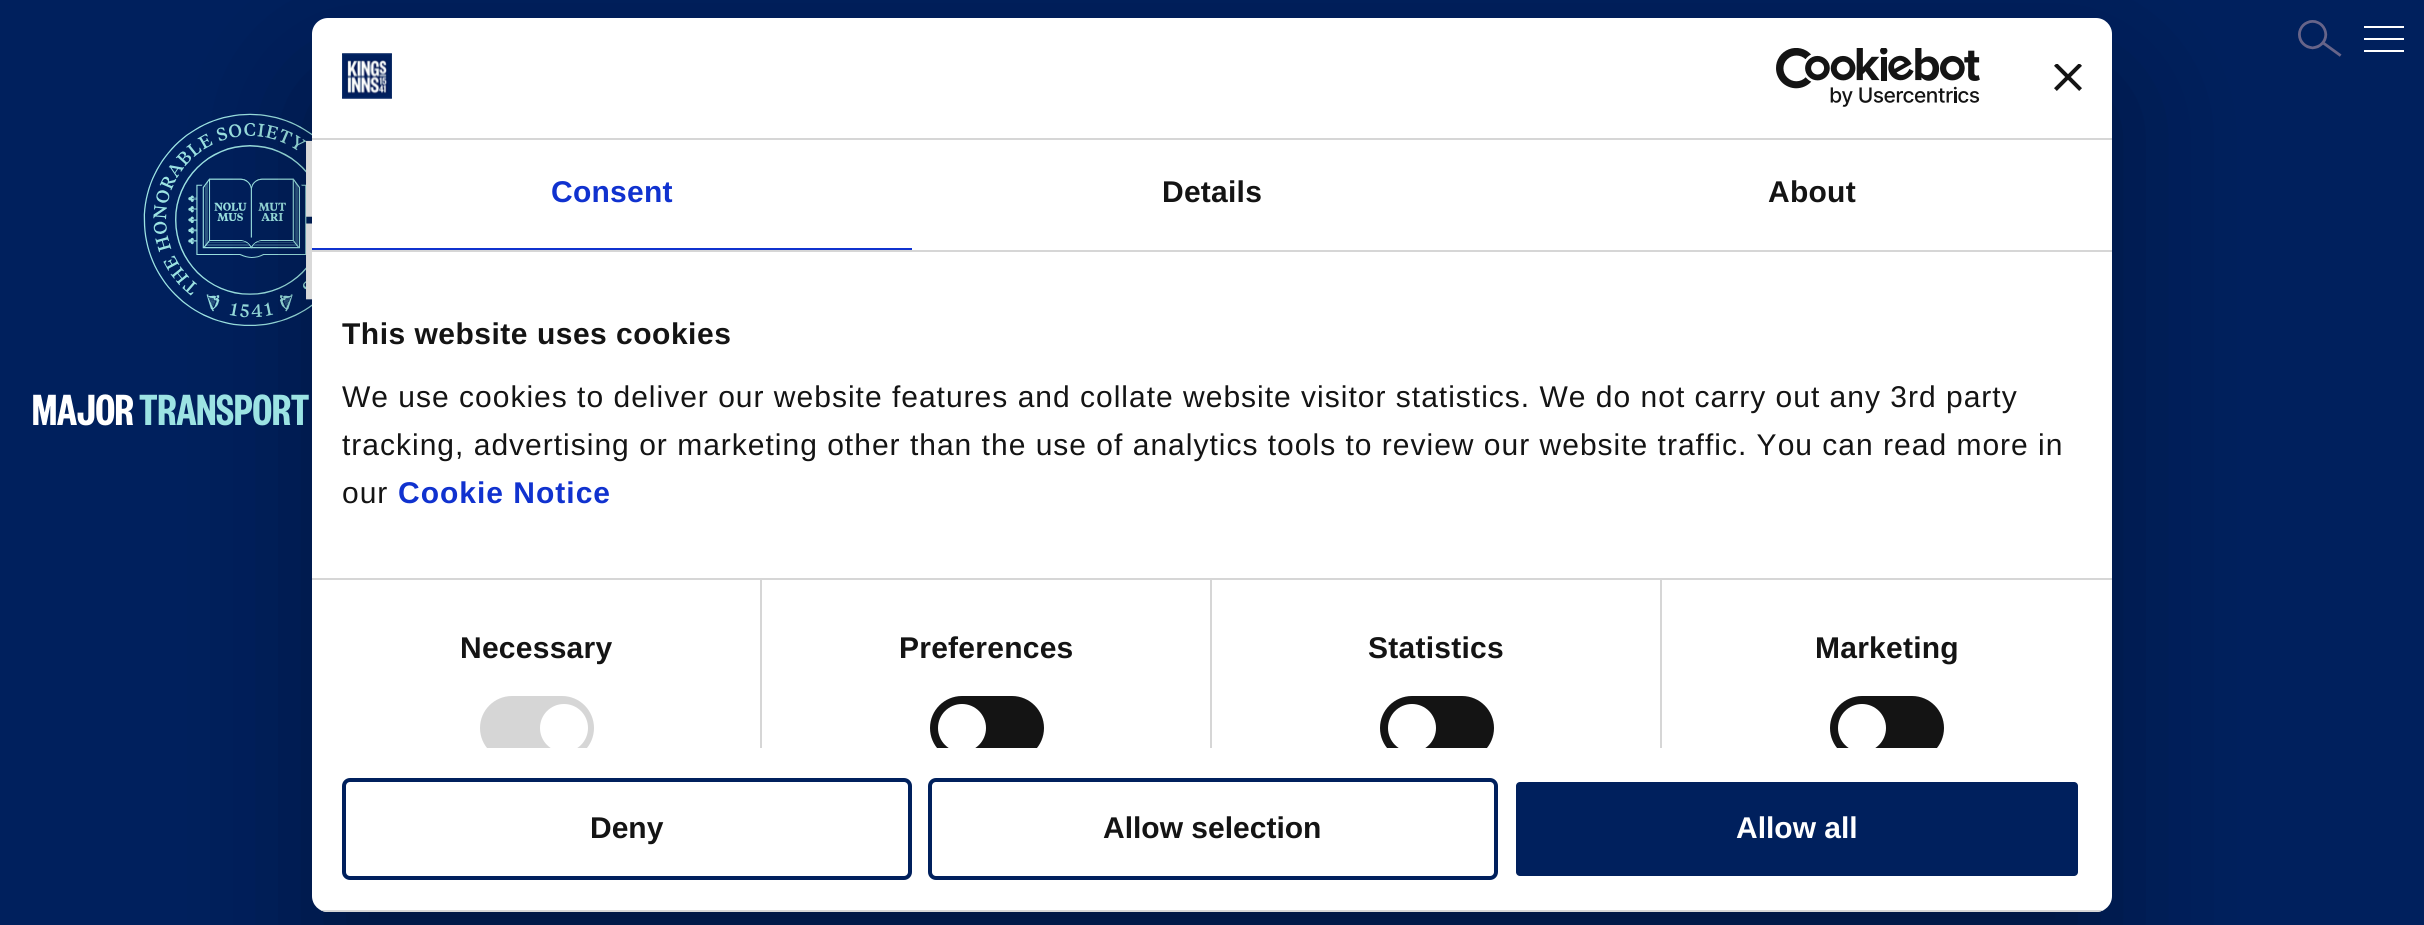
import math
import cairo


def use_color(cr, r, g, b):
  cr.set_source_rgb(r / 255, g / 255, b / 255)

def text(cr, x, y, s, family, size, color, bold=False, italic=False):
  cr.select_font_face(family, cairo.FONT_SLANT_ITALIC if italic else cairo.FONT_SLANT_NORMAL, cairo.FONT_WEIGHT_BOLD if bold else cairo.FONT_WEIGHT_NORMAL)
  cr.set_font_size(size)
  use_color(cr, *color)
  cr.move_to(x, y)
  cr.show_text(s)

def spaced_text(cr, x, y, s, letter, word):
  cr.move_to(x, y)
  for ch in s:
    cr.show_text(ch)
    cr.rel_move_to(letter + word * (ch == ' '), 0)

def box(cr, x, y, w, h, *color):
  use_color(cr, *color)
  cr.rectangle(x, y, w, h)
  cr.fill()

def round_rect(cr, x, y, w, h, r):
  cr.new_sub_path()
  for i, (u, v) in enumerate([(x + w - r, y + h - r), (x + r, y + h - r), (x + r, y + r), (x + w - r, y + r)]):
    cr.arc(u, v, r, i * math.pi / 2, (i + 1) * math.pi / 2)
  cr.close_path()

def shadow(cr, x, y, w, h, r, blur, alpha):
  cr.push_group_with_content(cairo.CONTENT_ALPHA)
  cr.set_operator(cairo.OPERATOR_SOURCE)
  for i in range(15, -16, -2):
    e = blur * i / 6
    if min(w, h) + 2 * e > 0:
      cr.set_source_rgba(0, 0, 0, alpha * math.erfc((i - 1) / 8.5) / 2)
      round_rect(cr, x - e, y - e, w + 2 * e, h + 2 * e, max(0, min(r + e + blur * .6, min(w, h) / 2 + e)))
      cr.fill()
  cr.mask(cr.pop_group())

def picture(cr, path, x, y, w, h):
  cr.save()
  cr.set_source_surface(cairo.ImageSurface.create_from_png(path), x, y)
  cr.rectangle(x, y, w, h)
  cr.fill()
  cr.restore()

def draw(cr):
  use_color(cr, 0, 32, 93)
  cr.paint()
  picture(cr, "img_01.png", 2298, 20, 44, 37)
  box(cr, 2364, 26, 40, 2, 255, 255, 255)
  box(cr, 2364, 38, 40, 2, 255, 255, 255)
  box(cr, 2364, 50, 40, 2, 255, 255, 255)
  picture(cr, "img_02.png", 143, 113, 169, 213)
  picture(cr, "img_03.png", 306, 140, 6, 160)
  use_color(cr, 0, 0, 0)
  shadow(cr, 312, 82, 1800, 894, 16, 68, 0.3)
  use_color(cr, 255, 255, 255)
  round_rect(cr, 312, 18, 1800, 894, 16)
  cr.fill()
  box(cr, 312, 138, 1800, 2, 214, 214, 214)
  picture(cr, "img_04.png", 342, 53, 50, 46)
  picture(cr, "img_05.png", 1776, 48, 204, 59)
  picture(cr, "img_06.png", 2054, 64, 28, 27)
  box(cr, 312, 250, 1800, 2, 214, 214, 214)
  box(cr, 312, 248, 600, 2, 16, 50, 207)
  box(cr, 312, 578, 1800, 2, 214, 214, 214)
  box(cr, 760, 580, 2, 168, 214, 214, 214)
  cr.save()
  cr.rectangle(312, 252, 1800, 496)
  cr.clip()
  round_rect(cr, 480, 696, 114, 64, 32)
  cr.fill()
  use_color(cr, 255, 255, 255)
  cr.arc(564, 728, 24, 0, 2 * math.pi)
  cr.fill()
  cr.restore()
  box(cr, 1210, 580, 2, 168, 214, 214, 214)
  cr.save()
  cr.rectangle(312, 252, 1800, 496)
  cr.clip()
  use_color(cr, 20, 20, 20)
  round_rect(cr, 930, 696, 114, 64, 32)
  cr.fill()
  use_color(cr, 255, 255, 255)
  cr.arc(962, 728, 24, 0, 2 * math.pi)
  cr.fill()
  cr.restore()
  box(cr, 1660, 580, 2, 168, 214, 214, 214)
  cr.save()
  cr.rectangle(312, 252, 1800, 496)
  cr.clip()
  use_color(cr, 20, 20, 20)
  round_rect(cr, 1380, 696, 114, 64, 32)
  cr.fill()
  use_color(cr, 255, 255, 255)
  cr.arc(1412, 728, 24, 0, 2 * math.pi)
  cr.fill()
  use_color(cr, 20, 20, 20)
  round_rect(cr, 1830, 696, 114, 64, 32)
  cr.fill()
  use_color(cr, 255, 255, 255)
  cr.arc(1862, 728, 24, 0, 2 * math.pi)
  cr.fill()
  cr.restore()
  cr.save()
  round_rect(cr, 312, 18, 1800, 894, 16)
  cr.clip()
  box(cr, 312, 910, 1800, 2, 214, 214, 214)
  cr.restore()
  round_rect(cr, 344, 780, 566, 98, 6)
  use_color(cr, 0, 32, 93)
  cr.set_line_width(4)
  cr.stroke()
  round_rect(cr, 930, 780, 566, 98, 6)
  cr.stroke()
  round_rect(cr, 1514, 780, 566, 98, 6)
  cr.fill_preserve()
  use_color(cr, 255, 255, 255)
  cr.stroke()
  text(cr, 32, 425, "MAJOR", "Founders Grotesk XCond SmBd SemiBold", 48, (255, 255, 255))
  text(cr, 139, 425, "TRANSPORT", "Founders Grotesk XCond SmBd SemiBold", 48, (156, 227, 227))
  cr.select_font_face("Liberation Sans", cairo.FONT_SLANT_NORMAL, cairo.FONT_WEIGHT_BOLD)
  cr.set_font_size(30)
  use_color(cr, 16, 50, 207)
  spaced_text(cr, 551, 202, "Consent", 0.25, 0)
  use_color(cr, 20, 20, 20)
  spaced_text(cr, 1162, 202, "Details", 0.25, 0)
  spaced_text(cr, 1768, 202, "About", 0.25, 0)
  spaced_text(cr, 342, 344, "This website uses cookies", 0.5, 0)
  cr.select_font_face("Liberation Sans")
  spaced_text(cr, 342, 407, "We use cookies to deliver our website features and collate website visitor statistics. We do not carry out any 3rd party", 1, 0)
  spaced_text(cr, 342, 455, "tracking, advertising or marketing other than the use of analytics tools to review our website traffic. You can read more in", 1, 0)
  spaced_text(cr, 342, 503, "our", 1, 0)
  cr.select_font_face("Liberation Sans", cairo.FONT_SLANT_NORMAL, cairo.FONT_WEIGHT_BOLD)
  use_color(cr, 16, 50, 207)
  spaced_text(cr, 398, 503, "Cookie Notice", 1, 0)
  use_color(cr, 20, 20, 20)
  spaced_text(cr, 460, 658, "Necessary", 0.25, 0)
  spaced_text(cr, 899, 658, "Preferences", 0.25, 0)
  spaced_text(cr, 1368, 658, "Statistics", 0.25, 0)
  spaced_text(cr, 1815, 658, "Marketing", 0.25, 0)
  text(cr, 590, 838, "Deny", "Liberation Sans", 30, (20, 20, 20), bold=True)
  text(cr, 1103, 838, "Allow selection", "Liberation Sans", 30, (20, 20, 20), bold=True)
  text(cr, 1736, 838, "Allow all", "Liberation Sans", 30, (255, 255, 255), bold=True)


surface = cairo.ImageSurface(cairo.FORMAT_RGB24, 2424, 925)
cr = cairo.Context(surface)
options = cairo.FontOptions()
options.set_hint_metrics(cairo.HINT_METRICS_OFF)
options.set_hint_style(cairo.HINT_STYLE_NONE)
cr.set_font_options(options)
cr.set_miter_limit(4)
draw(cr)
surface.write_to_png("out.png")
